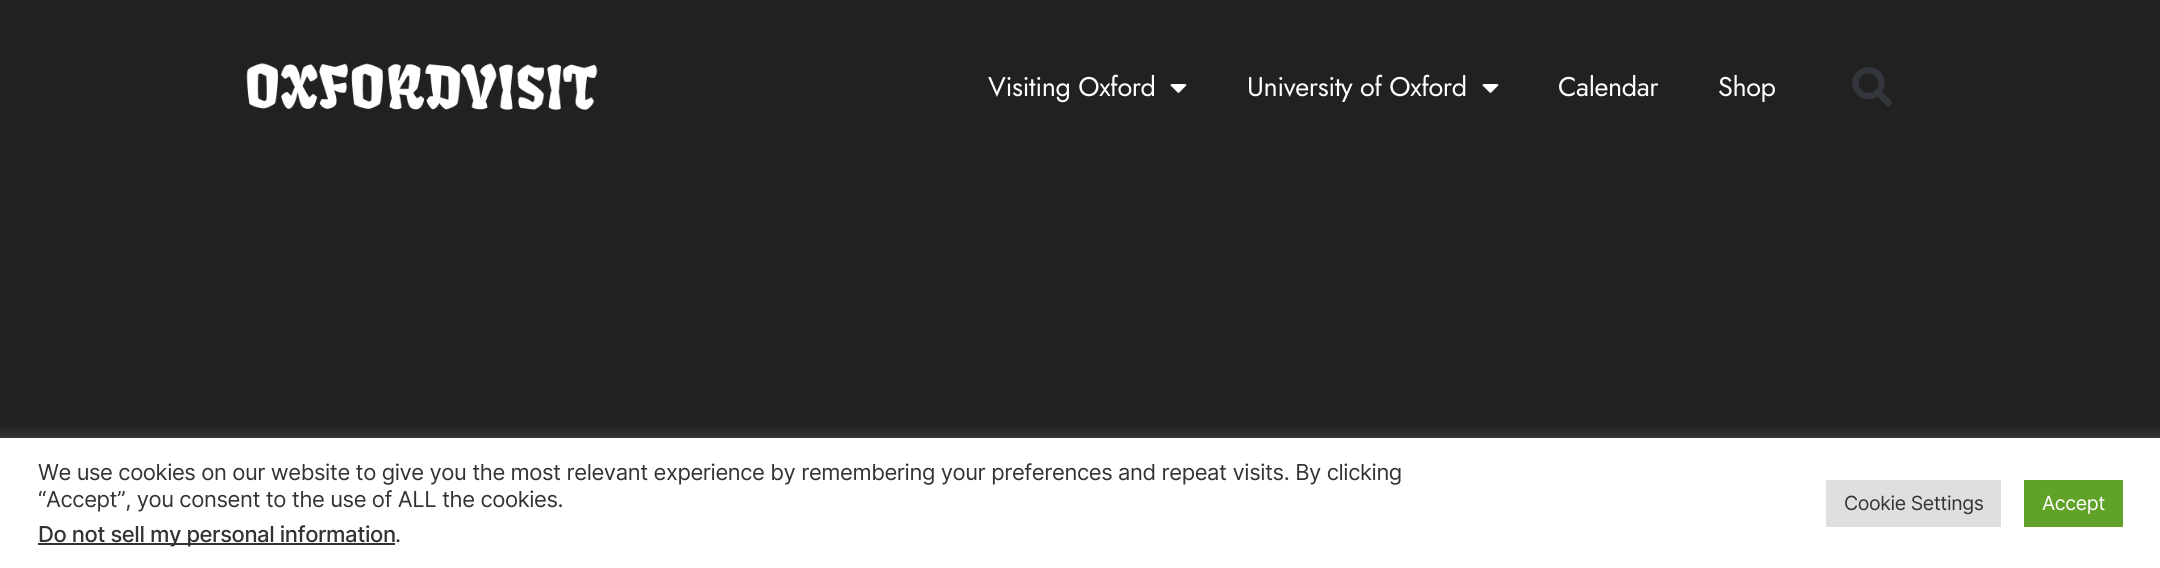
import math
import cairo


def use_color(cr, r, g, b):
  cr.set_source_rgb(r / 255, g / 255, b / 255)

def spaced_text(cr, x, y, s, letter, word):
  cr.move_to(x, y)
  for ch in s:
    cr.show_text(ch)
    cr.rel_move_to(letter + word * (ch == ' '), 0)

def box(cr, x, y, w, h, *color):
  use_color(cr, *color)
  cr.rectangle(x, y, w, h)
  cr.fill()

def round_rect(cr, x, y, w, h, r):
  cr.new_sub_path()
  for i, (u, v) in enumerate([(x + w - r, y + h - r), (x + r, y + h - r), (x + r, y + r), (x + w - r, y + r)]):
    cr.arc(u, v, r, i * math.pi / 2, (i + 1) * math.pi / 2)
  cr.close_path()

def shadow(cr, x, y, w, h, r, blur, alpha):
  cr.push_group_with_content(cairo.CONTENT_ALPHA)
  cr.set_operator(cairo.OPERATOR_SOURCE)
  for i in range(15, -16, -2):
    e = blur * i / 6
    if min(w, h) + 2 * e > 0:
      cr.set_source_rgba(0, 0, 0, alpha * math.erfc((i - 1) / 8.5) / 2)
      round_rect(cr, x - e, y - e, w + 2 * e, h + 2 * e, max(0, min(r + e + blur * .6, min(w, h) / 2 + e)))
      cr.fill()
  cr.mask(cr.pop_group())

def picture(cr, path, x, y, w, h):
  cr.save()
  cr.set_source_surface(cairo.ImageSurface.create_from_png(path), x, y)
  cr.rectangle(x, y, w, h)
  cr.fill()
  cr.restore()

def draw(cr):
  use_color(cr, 33, 33, 33)
  cr.paint()
  picture(cr, "img_01.png", 246, 63, 352, 47)
  picture(cr, "img_02.png", 1170, 84, 17, 9)
  picture(cr, "img_02.png", 1482, 84, 17, 9)
  picture(cr, "img_03.png", 1852, 67, 40, 40)
  use_color(cr, 172, 171, 171)
  shadow(cr, 0, 437, 2160, 130, 0, 7.5, 0.3)
  box(cr, 0, 438, 2160, 130, 255, 255, 255)
  box(cr, 38, 543, 357, 2, 51, 51, 51)
  box(cr, 1826, 480, 175, 47, 222, 223, 224)
  box(cr, 2024, 480, 99, 47, 97, 162, 41)
  cr.select_font_face("Jost")
  cr.set_font_size(27)
  use_color(cr, 255, 255, 255)
  spaced_text(cr, 988, 96, "Visiting Oxford", -0.41, 0)
  spaced_text(cr, 1247, 96, "University of Oxford", -0.41, 0)
  spaced_text(cr, 1558, 96, "Calendar", -0.41, 0)
  spaced_text(cr, 1718, 96, "Shop", -0.41, 0)
  cr.select_font_face("Inter")
  cr.set_font_size(22)
  use_color(cr, 51, 51, 51)
  spaced_text(cr, 38, 480, "We use cookies on our website to give you the most relevant experience by remembering your preferences and repeat visits. By clicking", -0.41, 0)
  spaced_text(cr, 38, 507, "“Accept”, you consent to the use of ALL the cookies.", -0.41, 0)
  cr.select_font_face("Inter Medium")
  spaced_text(cr, 38, 542, "Do not sell my personal information", -0.41, 0)
  cr.select_font_face("Inter")
  spaced_text(cr, 395, 542, ".", -0.41, 0)
  cr.set_font_size(19.5)
  spaced_text(cr, 1844, 510, "Cookie Settings", -0.41, 0)
  use_color(cr, 255, 255, 255)
  spaced_text(cr, 2042, 510, "Accept", -0.41, 0)


surface = cairo.ImageSurface(cairo.FORMAT_RGB24, 2160, 568)
cr = cairo.Context(surface)
options = cairo.FontOptions()
options.set_hint_metrics(cairo.HINT_METRICS_OFF)
options.set_hint_style(cairo.HINT_STYLE_NONE)
cr.set_font_options(options)
cr.set_miter_limit(4)
draw(cr)
surface.write_to_png("out.png")
